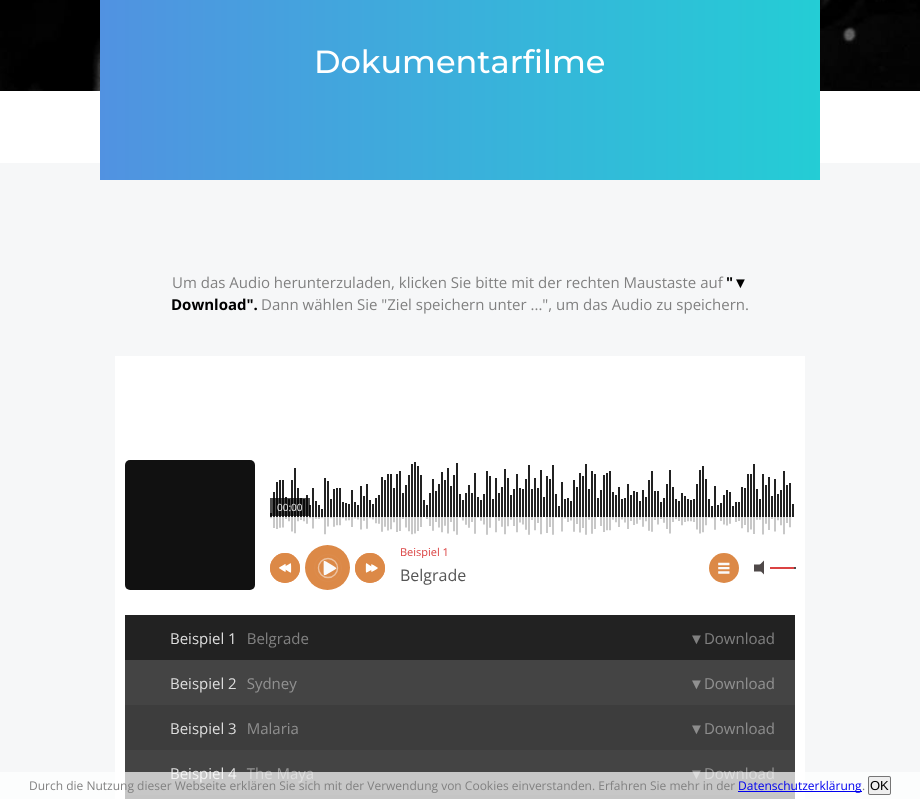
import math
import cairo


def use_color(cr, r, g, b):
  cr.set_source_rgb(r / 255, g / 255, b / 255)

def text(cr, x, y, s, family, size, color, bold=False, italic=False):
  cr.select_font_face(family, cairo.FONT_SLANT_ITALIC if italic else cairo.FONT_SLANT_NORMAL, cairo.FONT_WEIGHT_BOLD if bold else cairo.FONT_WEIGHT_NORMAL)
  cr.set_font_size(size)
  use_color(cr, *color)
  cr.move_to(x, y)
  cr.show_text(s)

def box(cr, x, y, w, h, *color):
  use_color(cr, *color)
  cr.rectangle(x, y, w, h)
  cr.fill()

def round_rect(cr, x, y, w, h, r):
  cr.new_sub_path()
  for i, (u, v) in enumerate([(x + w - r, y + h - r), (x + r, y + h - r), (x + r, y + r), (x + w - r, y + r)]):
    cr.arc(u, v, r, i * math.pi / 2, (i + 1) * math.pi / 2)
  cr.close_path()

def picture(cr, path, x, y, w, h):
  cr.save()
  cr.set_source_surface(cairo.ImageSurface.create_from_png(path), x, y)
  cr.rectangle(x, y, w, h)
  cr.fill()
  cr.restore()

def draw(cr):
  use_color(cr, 255, 255, 255)
  cr.paint()
  picture(cr, "img_01.png", 0, 0, 920, 91)
  box(cr, 0, 163, 920, 636, 246, 247, 248)
  gradient = cairo.LinearGradient(100, 77, 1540, 77)
  gradient.add_color_stop_rgba(0, 0.318, 0.573, 0.882, 1)
  gradient.add_color_stop_rgba(0.51, 0.137, 0.808, 0.835, 1)
  gradient.add_color_stop_rgba(1, 0.318, 0.573, 0.882, 1)
  cr.set_source(gradient)
  cr.rectangle(100, 0, 720, 180)
  cr.fill()
  picture(cr, "img_02.png", 115, 356, 690, 443)
  cr.set_source_rgba(1, 1, 1, 0.7)
  cr.rectangle(0, 772, 920, 27)
  cr.fill()
  box(cr, 738, 791, 124, 1, 0, 0, 238)
  use_color(cr, 239, 239, 239)
  round_rect(cr, 868.5, 776.5, 22, 18, 1.5)
  cr.fill_preserve()
  use_color(cr, 118, 118, 118)
  cr.set_line_width(1)
  cr.stroke()
  text(cr, 314, 73, "Dokumentarfilme", "Montserrat Medium", 32, (255, 255, 255))
  text(cr, 172, 288, "Um das Audio herunterzuladen, klicken Sie bitte mit der rechten Maustaste auf", "Open Sans", 15, (128, 128, 128))
  text(cr, 726, 288, "\"", "Open Sans", 15, (0, 0, 0), bold=True)
  text(cr, 733, 288, "▼", "Liberation Sans", 15, (0, 0, 0), bold=True)
  text(cr, 171, 310, "Download\".", "Open Sans", 15, (0, 0, 0), bold=True)
  text(cr, 261, 310, "Dann wählen Sie \"Ziel speichern unter ...\", um das Audio zu speichern.", "Open Sans", 15, (128, 128, 128))
  text(cr, 29, 790, "Durch die Nutzung dieser Webseite erklären Sie sich mit der Verwendung von Cookies einverstanden. Erfahren Sie mehr in der", "Open Sans", 12, (128, 128, 128))
  text(cr, 738, 790, "Datenschutzerklärung", "Open Sans", 12, (0, 0, 238))
  text(cr, 862, 790, ".", "Open Sans", 12, (128, 128, 128))
  text(cr, 870, 790, "OK", "Liberation Sans", 13, (0, 0, 0))


surface = cairo.ImageSurface(cairo.FORMAT_RGB24, 920, 799)
cr = cairo.Context(surface)
options = cairo.FontOptions()
options.set_hint_metrics(cairo.HINT_METRICS_OFF)
options.set_hint_style(cairo.HINT_STYLE_NONE)
cr.set_font_options(options)
cr.set_miter_limit(4)
draw(cr)
surface.write_to_png("out.png")
